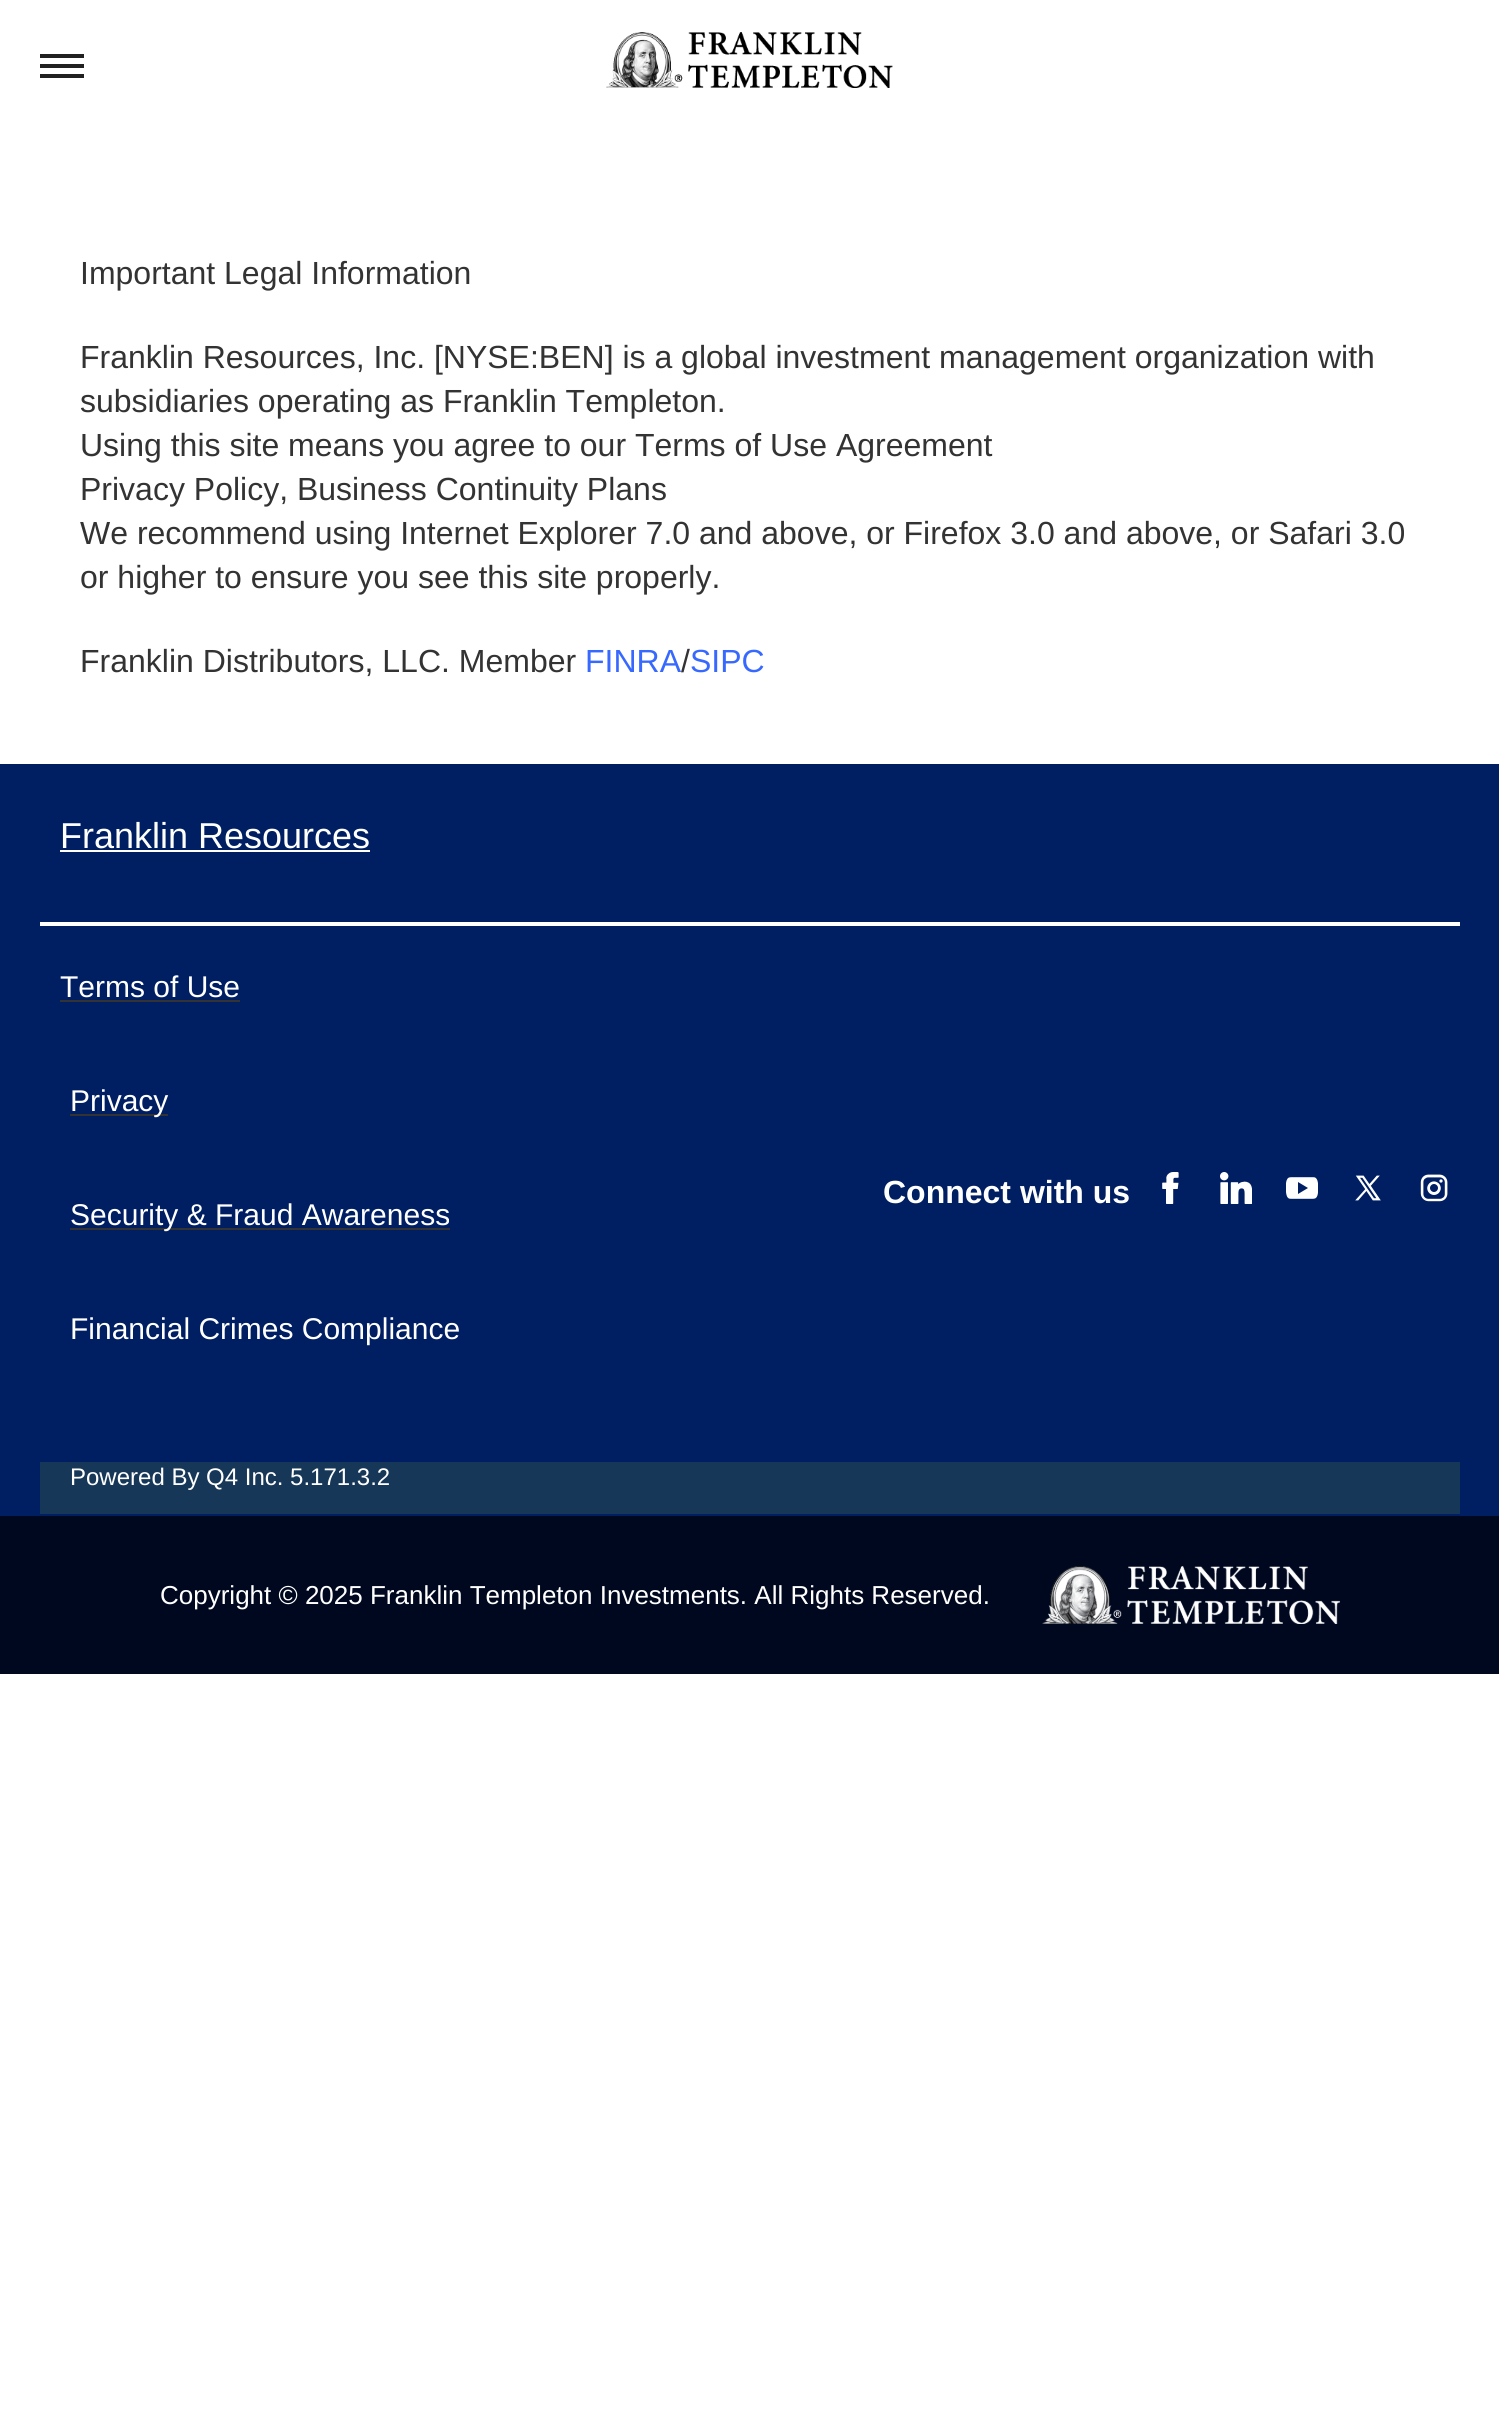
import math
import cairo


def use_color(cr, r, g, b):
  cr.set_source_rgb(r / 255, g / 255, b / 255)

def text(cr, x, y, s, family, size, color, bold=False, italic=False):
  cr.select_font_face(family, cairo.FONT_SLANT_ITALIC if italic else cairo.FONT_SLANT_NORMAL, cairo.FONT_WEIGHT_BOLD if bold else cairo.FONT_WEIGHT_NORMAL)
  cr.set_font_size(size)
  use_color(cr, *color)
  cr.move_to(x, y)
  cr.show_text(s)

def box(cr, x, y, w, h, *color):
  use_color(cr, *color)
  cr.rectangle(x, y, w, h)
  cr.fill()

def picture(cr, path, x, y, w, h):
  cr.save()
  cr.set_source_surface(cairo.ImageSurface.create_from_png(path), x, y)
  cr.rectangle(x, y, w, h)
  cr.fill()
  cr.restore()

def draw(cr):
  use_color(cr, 255, 255, 255)
  cr.paint()
  box(cr, 40, 54, 44, 4, 33, 33, 33)
  box(cr, 40, 64, 44, 4, 33, 33, 33)
  box(cr, 40, 74, 44, 4, 33, 33, 33)
  picture(cr, "img_01.png", 606, 32, 287, 56)
  box(cr, 0, 764, 1499, 752, 0, 30, 98)
  box(cr, 60, 850, 310, 2, 255, 255, 255)
  box(cr, 40, 922, 1420, 4, 255, 255, 255)
  box(cr, 60, 1000, 180, 2, 51, 51, 51)
  box(cr, 70, 1114, 98, 2, 51, 51, 51)
  box(cr, 70, 1228, 380, 2, 51, 51, 51)
  picture(cr, "img_02.png", 1162, 1172, 17, 32)
  picture(cr, "img_03.png", 1220, 1172, 32, 32)
  picture(cr, "img_04.png", 1286, 1177, 32, 22)
  picture(cr, "img_05.png", 1355, 1175, 26, 26)
  picture(cr, "img_06.png", 1420, 1174, 28, 28)
  box(cr, 0, 1516, 1499, 158, 0, 8, 31)
  picture(cr, "img_07.png", 1042, 1566, 298, 58)
  box(cr, 40, 1462, 1420, 52, 22, 55, 88)
  text(cr, 80, 284, "Important Legal Information", "Liberation Sans", 32, (51, 51, 51))
  text(cr, 80, 368, "Franklin Resources, Inc. [NYSE:BEN] is a global investment management organization with", "Liberation Sans", 32, (51, 51, 51))
  text(cr, 80, 412, "subsidiaries operating as Franklin Templeton.", "Liberation Sans", 32, (51, 51, 51))
  text(cr, 80, 456, "Using this site means you agree to our Terms of Use Agreement", "Liberation Sans", 32, (51, 51, 51))
  text(cr, 80, 500, "Privacy Policy, Business Continuity Plans", "Liberation Sans", 32, (51, 51, 51))
  text(cr, 80, 544, "We recommend using Internet Explorer 7.0 and above, or Firefox 3.0 and above, or Safari 3.0", "Liberation Sans", 32, (51, 51, 51))
  text(cr, 80, 588, "or higher to ensure you see this site properly.", "Liberation Sans", 32, (51, 51, 51))
  text(cr, 80, 672, "Franklin Distributors, LLC. Member", "Liberation Sans", 32, (51, 51, 51))
  text(cr, 585, 672, "FINRA SIPC", "Liberation Sans", 32, (55, 105, 255))
  text(cr, 681, 672, "/", "Liberation Sans", 32, (51, 51, 51))
  text(cr, 60, 848, "Franklin Resources", "Liberation Sans", 36, (255, 255, 255))
  text(cr, 60, 997, "Terms of Use", "Liberation Sans", 30, (255, 255, 255))
  text(cr, 70, 1111, "Privacy", "Liberation Sans", 30, (255, 255, 255))
  text(cr, 70, 1225, "Security & Fraud Awareness", "Liberation Sans", 30, (255, 255, 255))
  text(cr, 70, 1339, "Financial Crimes Compliance", "Liberation Sans", 30, (255, 255, 255))
  text(cr, 883, 1203, "Connect with us", "Liberation Sans", 32, (255, 255, 255), bold=True)
  text(cr, 160, 1604, "Copyright © 2025 Franklin Templeton Investments. All Rights Reserved.", "Liberation Sans", 26, (255, 255, 255))
  text(cr, 70, 1485, "Powered By Q4 Inc. 5.171.3.2", "Liberation Sans", 24, (255, 255, 255))


surface = cairo.ImageSurface(cairo.FORMAT_RGB24, 1499, 2411)
cr = cairo.Context(surface)
options = cairo.FontOptions()
options.set_hint_metrics(cairo.HINT_METRICS_OFF)
options.set_hint_style(cairo.HINT_STYLE_NONE)
cr.set_font_options(options)
cr.set_miter_limit(4)
draw(cr)
surface.write_to_png("out.png")
